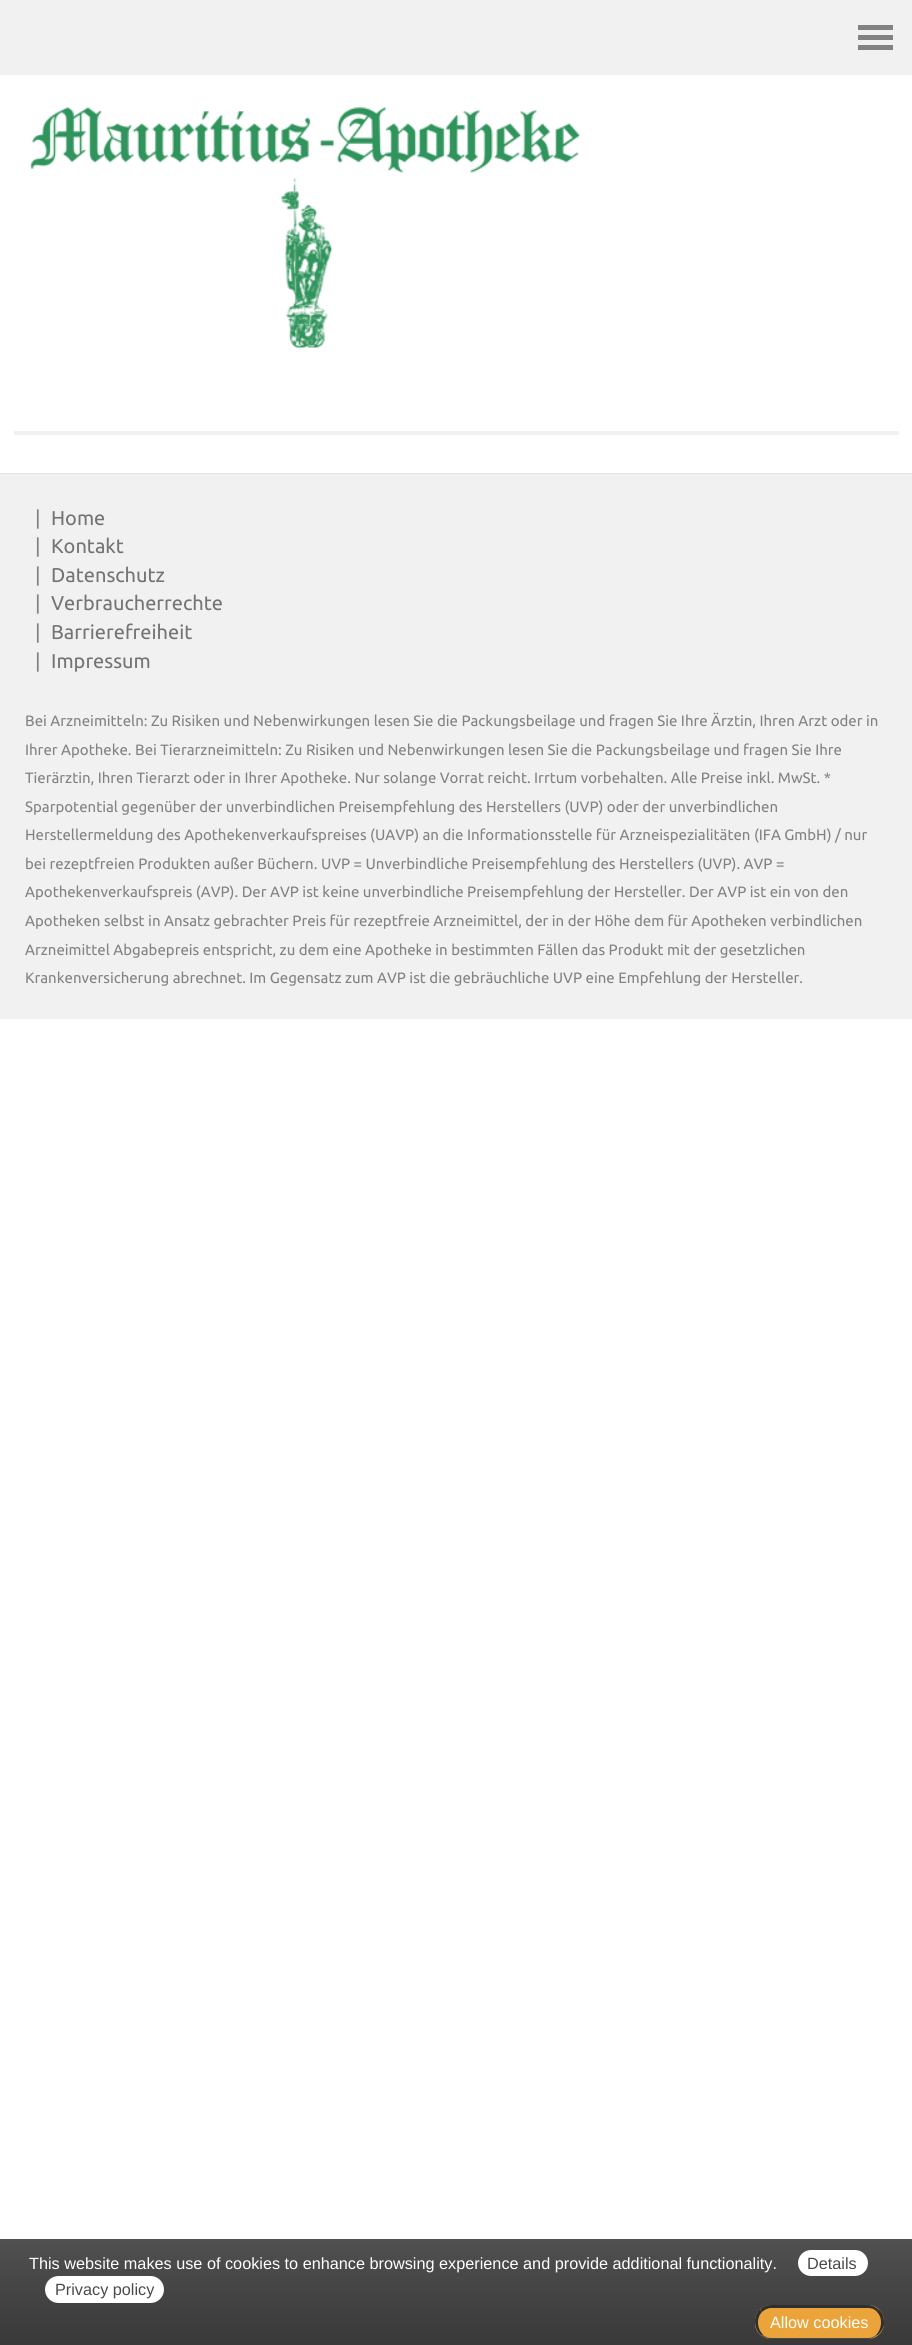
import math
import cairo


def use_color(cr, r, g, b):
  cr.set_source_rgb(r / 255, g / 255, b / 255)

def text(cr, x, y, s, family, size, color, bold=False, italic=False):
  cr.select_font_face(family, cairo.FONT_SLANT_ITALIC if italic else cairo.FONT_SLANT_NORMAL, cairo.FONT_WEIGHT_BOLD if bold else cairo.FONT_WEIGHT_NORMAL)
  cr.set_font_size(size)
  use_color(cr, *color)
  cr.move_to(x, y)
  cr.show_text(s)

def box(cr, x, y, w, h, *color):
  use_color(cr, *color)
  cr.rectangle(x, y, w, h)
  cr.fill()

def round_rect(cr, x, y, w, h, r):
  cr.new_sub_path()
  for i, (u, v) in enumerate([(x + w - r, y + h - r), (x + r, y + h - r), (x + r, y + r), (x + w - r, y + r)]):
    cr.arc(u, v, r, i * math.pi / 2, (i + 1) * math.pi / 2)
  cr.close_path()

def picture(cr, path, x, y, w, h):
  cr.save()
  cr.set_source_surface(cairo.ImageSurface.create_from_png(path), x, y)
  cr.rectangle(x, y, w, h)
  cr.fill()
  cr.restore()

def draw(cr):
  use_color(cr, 255, 255, 255)
  cr.paint()
  box(cr, 0, 0, 912, 75, 241, 241, 241)
  box(cr, 858, 25, 35, 5, 130, 130, 130)
  box(cr, 858, 35, 35, 5, 130, 130, 130)
  box(cr, 858, 45, 35, 5, 130, 130, 130)
  picture(cr, "img_01.png", 30, 106, 551, 242)
  box(cr, 14, 431, 885, 4, 241, 241, 241)
  box(cr, 0, 474, 912, 545, 241, 241, 241)
  box(cr, 0, 473, 912, 1, 227, 227, 227)
  gradient = cairo.LinearGradient(456, 2239, 456, 2345)
  gradient.add_color_stop_rgba(0, 0.314, 0.314, 0.314, 1)
  gradient.add_color_stop_rgba(1, 0.224, 0.224, 0.224, 1)
  cr.set_source(gradient)
  cr.rectangle(0, 2239, 912, 106)
  cr.fill()
  use_color(cr, 255, 255, 255)
  round_rect(cr, 798, 2250, 70, 26, 13)
  cr.fill()
  round_rect(cr, 45, 2276, 119, 27, 13.5)
  cr.fill()
  use_color(cr, 235, 164, 58)
  round_rect(cr, 755, 2305, 129, 34, 16)
  cr.fill()
  use_color(cr, 47, 47, 47)
  cr.new_path()
  cr.move_to(771, 2305)
  cr.curve_to(766, 2305, 762, 2307, 760, 2310)
  cr.line_to(762, 2312)
  cr.curve_to(764, 2310, 768, 2308, 771, 2308)
  cr.line_to(868, 2308)
  cr.curve_to(871, 2308, 875, 2309, 877, 2312)
  cr.line_to(879, 2310)
  cr.curve_to(876, 2307, 872, 2305, 868, 2305)
  cr.close_path()
  cr.fill()
  cr.new_path()
  cr.move_to(884, 2325)
  cr.curve_to(883, 2329, 880.5, 2333, 877, 2335.5)
  cr.line_to(876, 2335)
  cr.curve_to(882, 2329, 883, 2318, 877, 2312)
  cr.line_to(879, 2309.5)
  cr.curve_to(884, 2314.5, 884, 2318.5, 884, 2325)
  cr.close_path()
  cr.fill()
  use_color(cr, 74, 74, 74)
  cr.new_path()
  cr.move_to(768, 2339)
  cr.curve_to(766, 2338, 763, 2337, 761, 2336)
  cr.line_to(763, 2335)
  cr.curve_to(765, 2337, 768, 2338, 771, 2338)
  cr.line_to(868, 2338)
  cr.curve_to(871, 2338, 874, 2337, 876, 2335)
  cr.line_to(877, 2335)
  cr.curve_to(875, 2337, 873, 2338, 870, 2339)
  cr.close_path()
  cr.fill()
  use_color(cr, 47, 47, 47)
  cr.new_path()
  cr.move_to(755, 2321)
  cr.curve_to(755, 2326.5, 757, 2332, 761.5, 2335.5)
  cr.line_to(763, 2334.5)
  cr.curve_to(757, 2329, 756, 2318, 762, 2312)
  cr.line_to(759.5, 2309.5)
  cr.curve_to(757, 2312.5, 755, 2316.5, 755, 2321)
  cr.close_path()
  cr.fill()
  text(cr, 35, 525, "|", "Ubuntu", 20, (130, 130, 130))
  text(cr, 51, 525, "Home", "Ubuntu", 20, (116, 116, 116))
  text(cr, 35, 553, "|", "Ubuntu", 20, (130, 130, 130))
  text(cr, 51, 553, "Kontakt", "Ubuntu", 20, (116, 116, 116))
  text(cr, 35, 582, "|", "Ubuntu", 20, (130, 130, 130))
  text(cr, 51, 582, "Datenschutz", "Ubuntu", 20, (116, 116, 116))
  text(cr, 35, 610, "|", "Ubuntu", 20, (130, 130, 130))
  text(cr, 51, 610, "Verbraucherrechte", "Ubuntu", 20, (116, 116, 116))
  text(cr, 35, 639, "|", "Ubuntu", 20, (130, 130, 130))
  text(cr, 51, 639, "Barrierefreiheit", "Ubuntu", 20, (116, 116, 116))
  text(cr, 35, 668, "|", "Ubuntu", 20, (130, 130, 130))
  text(cr, 51, 668, "Impressum", "Ubuntu", 20, (116, 116, 116))
  text(cr, 25, 726, "Bei Arzneimitteln: Zu Risiken und Nebenwirkungen lesen Sie die Packungsbeilage und fragen Sie Ihre Ärztin, Ihren Arzt oder in", "Ubuntu", 15, (130, 130, 130))
  text(cr, 25, 755, "Ihrer Apotheke. Bei Tierarzneimitteln: Zu Risiken und Nebenwirkungen lesen Sie die Packungsbeilage und fragen Sie Ihre", "Ubuntu", 15, (130, 130, 130))
  text(cr, 25, 783, "Tierärztin, Ihren Tierarzt oder in Ihrer Apotheke. Nur solange Vorrat reicht. Irrtum vorbehalten. Alle Preise inkl. MwSt. *", "Ubuntu", 15, (130, 130, 130))
  text(cr, 25, 812, "Sparpotential gegenüber der unverbindlichen Preisempfehlung des Herstellers (UVP) oder der unverbindlichen", "Ubuntu", 15, (130, 130, 130))
  text(cr, 25, 840, "Herstellermeldung des Apothekenverkaufspreises (UAVP) an die Informationsstelle für Arzneispezialitäten (IFA GmbH) / nur", "Ubuntu", 15, (130, 130, 130))
  text(cr, 25, 869, "bei rezeptfreien Produkten außer Büchern. UVP = Unverbindliche Preisempfehlung des Herstellers (UVP). AVP =", "Ubuntu", 15, (130, 130, 130))
  text(cr, 25, 897, "Apothekenverkaufspreis (AVP). Der AVP ist keine unverbindliche Preisempfehlung der Hersteller. Der AVP ist ein von den", "Ubuntu", 15, (130, 130, 130))
  text(cr, 25, 926, "Apotheken selbst in Ansatz gebrachter Preis für rezeptfreie Arzneimittel, der in der Höhe dem für Apotheken verbindlichen", "Ubuntu", 15, (130, 130, 130))
  text(cr, 25, 955, "Arzneimittel Abgabepreis entspricht, zu dem eine Apotheke in bestimmten Fällen das Produkt mit der gesetzlichen", "Ubuntu", 15, (130, 130, 130))
  text(cr, 25, 983, "Krankenversicherung abrechnet. Im Gegensatz zum AVP ist die gebräuchliche UVP eine Empfehlung der Hersteller.", "Ubuntu", 15, (130, 130, 130))
  text(cr, 29, 2269, "This website makes use of cookies to enhance browsing experience and provide additional functionality.", "Liberation Sans", 16.25, (255, 255, 255))
  text(cr, 807, 2269, "Details", "Liberation Sans", 16.25, (74, 74, 74))
  text(cr, 55, 2295, "Privacy policy", "Liberation Sans", 16.25, (74, 74, 74))
  text(cr, 770, 2328, "Allow cookies", "Liberation Sans", 16.25, (255, 255, 255))


surface = cairo.ImageSurface(cairo.FORMAT_RGB24, 912, 2345)
cr = cairo.Context(surface)
options = cairo.FontOptions()
options.set_hint_metrics(cairo.HINT_METRICS_OFF)
options.set_hint_style(cairo.HINT_STYLE_NONE)
cr.set_font_options(options)
cr.set_miter_limit(4)
draw(cr)
surface.write_to_png("out.png")
